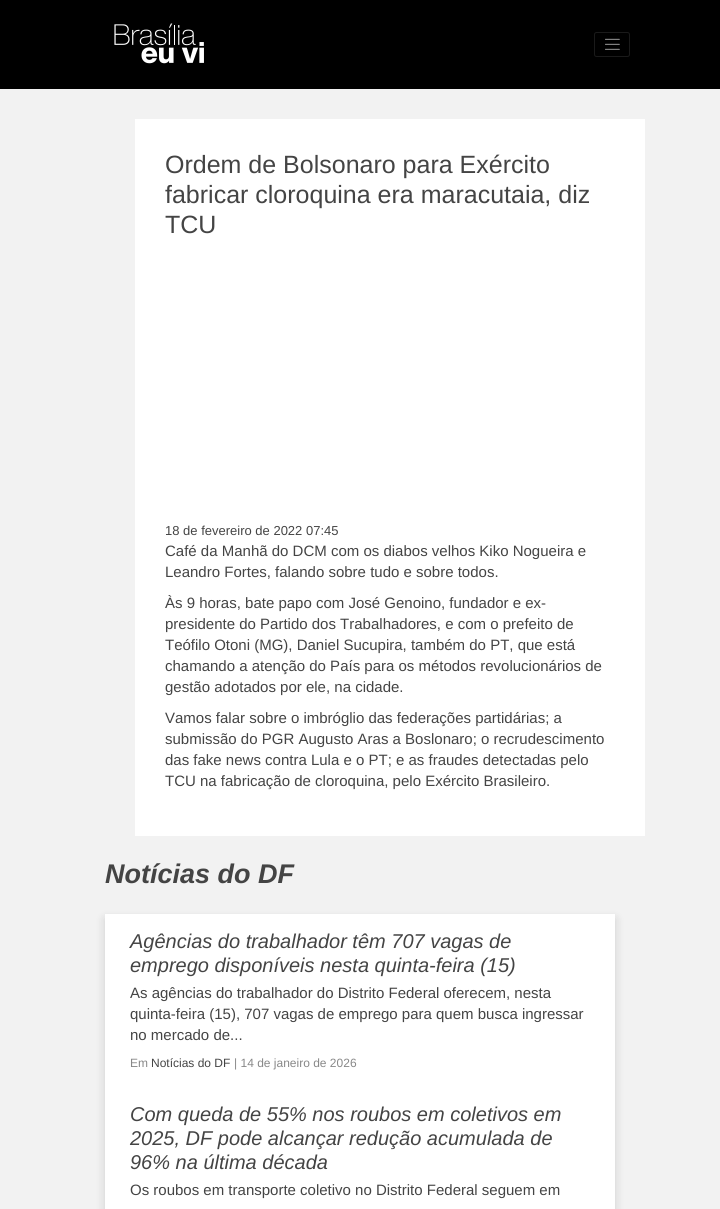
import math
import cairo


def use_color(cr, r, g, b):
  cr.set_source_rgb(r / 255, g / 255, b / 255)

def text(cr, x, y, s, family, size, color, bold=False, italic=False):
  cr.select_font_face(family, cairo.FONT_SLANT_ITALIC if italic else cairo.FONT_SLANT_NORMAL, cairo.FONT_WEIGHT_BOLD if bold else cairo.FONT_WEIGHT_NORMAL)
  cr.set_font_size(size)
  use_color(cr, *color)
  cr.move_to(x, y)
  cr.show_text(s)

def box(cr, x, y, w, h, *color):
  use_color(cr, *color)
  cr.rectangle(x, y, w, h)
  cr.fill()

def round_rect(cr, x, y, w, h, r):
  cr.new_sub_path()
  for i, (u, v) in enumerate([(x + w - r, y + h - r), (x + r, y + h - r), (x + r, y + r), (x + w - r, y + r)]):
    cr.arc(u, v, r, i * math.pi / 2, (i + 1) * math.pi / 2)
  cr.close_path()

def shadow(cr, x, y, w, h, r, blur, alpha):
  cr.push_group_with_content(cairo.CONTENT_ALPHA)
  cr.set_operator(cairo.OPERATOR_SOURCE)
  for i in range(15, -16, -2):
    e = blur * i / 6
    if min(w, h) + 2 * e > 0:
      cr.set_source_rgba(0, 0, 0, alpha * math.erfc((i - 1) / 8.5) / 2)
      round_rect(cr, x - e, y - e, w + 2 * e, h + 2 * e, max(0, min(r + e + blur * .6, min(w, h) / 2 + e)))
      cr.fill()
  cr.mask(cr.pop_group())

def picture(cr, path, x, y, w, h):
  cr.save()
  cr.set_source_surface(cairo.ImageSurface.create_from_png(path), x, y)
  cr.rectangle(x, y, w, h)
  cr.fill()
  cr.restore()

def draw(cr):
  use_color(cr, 242, 242, 242)
  cr.paint()
  box(cr, 0, 0, 720, 89, 0, 0, 0)
  picture(cr, "img_01.png", 114, 23, 90, 41)
  round_rect(cr, 594.5, 32.5, 35, 24, 2)
  use_color(cr, 26, 26, 26)
  cr.set_line_width(1)
  cr.stroke()
  picture(cr, "img_02.png", 605, 38, 15, 12)
  box(cr, 135, 119, 510, 717, 255, 255, 255)
  use_color(cr, 0, 0, 0)
  shadow(cr, 105, 919, 510, 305, 0, 5, 0.15)
  box(cr, 105, 914, 510, 295, 255, 255, 255)
  text(cr, 165, 173, "Ordem de Bolsonaro para Exército", "Liberation Sans", 25, (68, 68, 68))
  text(cr, 165, 203, "fabricar cloroquina era maracutaia, diz", "Liberation Sans", 25, (68, 68, 68))
  text(cr, 165, 233, "TCU", "Liberation Sans", 25, (68, 68, 68))
  text(cr, 165, 535, "18 de fevereiro de 2022 07:45", "Liberation Sans", 13, (68, 68, 68))
  text(cr, 165, 556, "Café da Manhã do DCM com os diabos velhos Kiko Nogueira e", "Liberation Sans", 15, (68, 68, 68))
  text(cr, 165, 577, "Leandro Fortes, falando sobre tudo e sobre todos.", "Liberation Sans", 15, (68, 68, 68))
  text(cr, 165, 608, "Às 9 horas, bate papo com José Genoino, fundador e ex-", "Liberation Sans", 15, (68, 68, 68))
  text(cr, 165, 629, "presidente do Partido dos Trabalhadores, e com o prefeito de", "Liberation Sans", 15, (68, 68, 68))
  text(cr, 165, 650, "Teófilo Otoni (MG), Daniel Sucupira, também do PT, que está", "Liberation Sans", 15, (68, 68, 68))
  text(cr, 165, 671, "chamando a atenção do País para os métodos revolucionários de", "Liberation Sans", 15, (68, 68, 68))
  text(cr, 165, 692, "gestão adotados por ele, na cidade.", "Liberation Sans", 15, (68, 68, 68))
  text(cr, 165, 723, "Vamos falar sobre o imbróglio das federações partidárias; a", "Liberation Sans", 15, (68, 68, 68))
  text(cr, 165, 744, "submissão do PGR Augusto Aras a Boslonaro; o recrudescimento", "Liberation Sans", 15, (68, 68, 68))
  text(cr, 165, 765, "das fake news contra Lula e o PT; e as fraudes detectadas pelo", "Liberation Sans", 15, (68, 68, 68))
  text(cr, 165, 786, "TCU na fabricação de cloroquina, pelo Exército Brasileiro.", "Liberation Sans", 15, (68, 68, 68))
  text(cr, 105, 883, "Notícias do DF", "Liberation Sans", 27, (68, 68, 68), bold=True, italic=True)
  text(cr, 130, 948, "Agências do trabalhador têm 707 vagas de", "Liberation Sans", 20, (68, 68, 68), italic=True)
  text(cr, 130, 972, "emprego disponíveis nesta quinta-feira (15)", "Liberation Sans", 20, (68, 68, 68), italic=True)
  text(cr, 130, 998, "As agências do trabalhador do Distrito Federal oferecem, nesta", "Liberation Sans", 15, (68, 68, 68))
  text(cr, 130, 1019, "quinta-feira (15), 707 vagas de emprego para quem busca ingressar", "Liberation Sans", 15, (68, 68, 68))
  text(cr, 130, 1040, "no mercado de...", "Liberation Sans", 15, (68, 68, 68))
  text(cr, 130, 1067, "Em", "Liberation Sans", 12, (136, 136, 136))
  text(cr, 151, 1067, "Notícias do DF", "Liberation Sans", 12, (68, 68, 68))
  text(cr, 234, 1067, "| 14 de janeiro de 2026", "Liberation Sans", 12, (136, 136, 136))
  text(cr, 130, 1121, "Com queda de 55% nos roubos em coletivos em", "Liberation Sans", 20, (68, 68, 68), italic=True)
  text(cr, 130, 1145, "2025, DF pode alcançar redução acumulada de", "Liberation Sans", 20, (68, 68, 68), italic=True)
  text(cr, 130, 1169, "96% na última década", "Liberation Sans", 20, (68, 68, 68), italic=True)
  text(cr, 130, 1195, "Os roubos em transporte coletivo no Distrito Federal seguem em", "Liberation Sans", 15, (68, 68, 68))


surface = cairo.ImageSurface(cairo.FORMAT_RGB24, 720, 1209)
cr = cairo.Context(surface)
options = cairo.FontOptions()
options.set_hint_metrics(cairo.HINT_METRICS_OFF)
options.set_hint_style(cairo.HINT_STYLE_NONE)
cr.set_font_options(options)
cr.set_miter_limit(4)
draw(cr)
surface.write_to_png("out.png")
